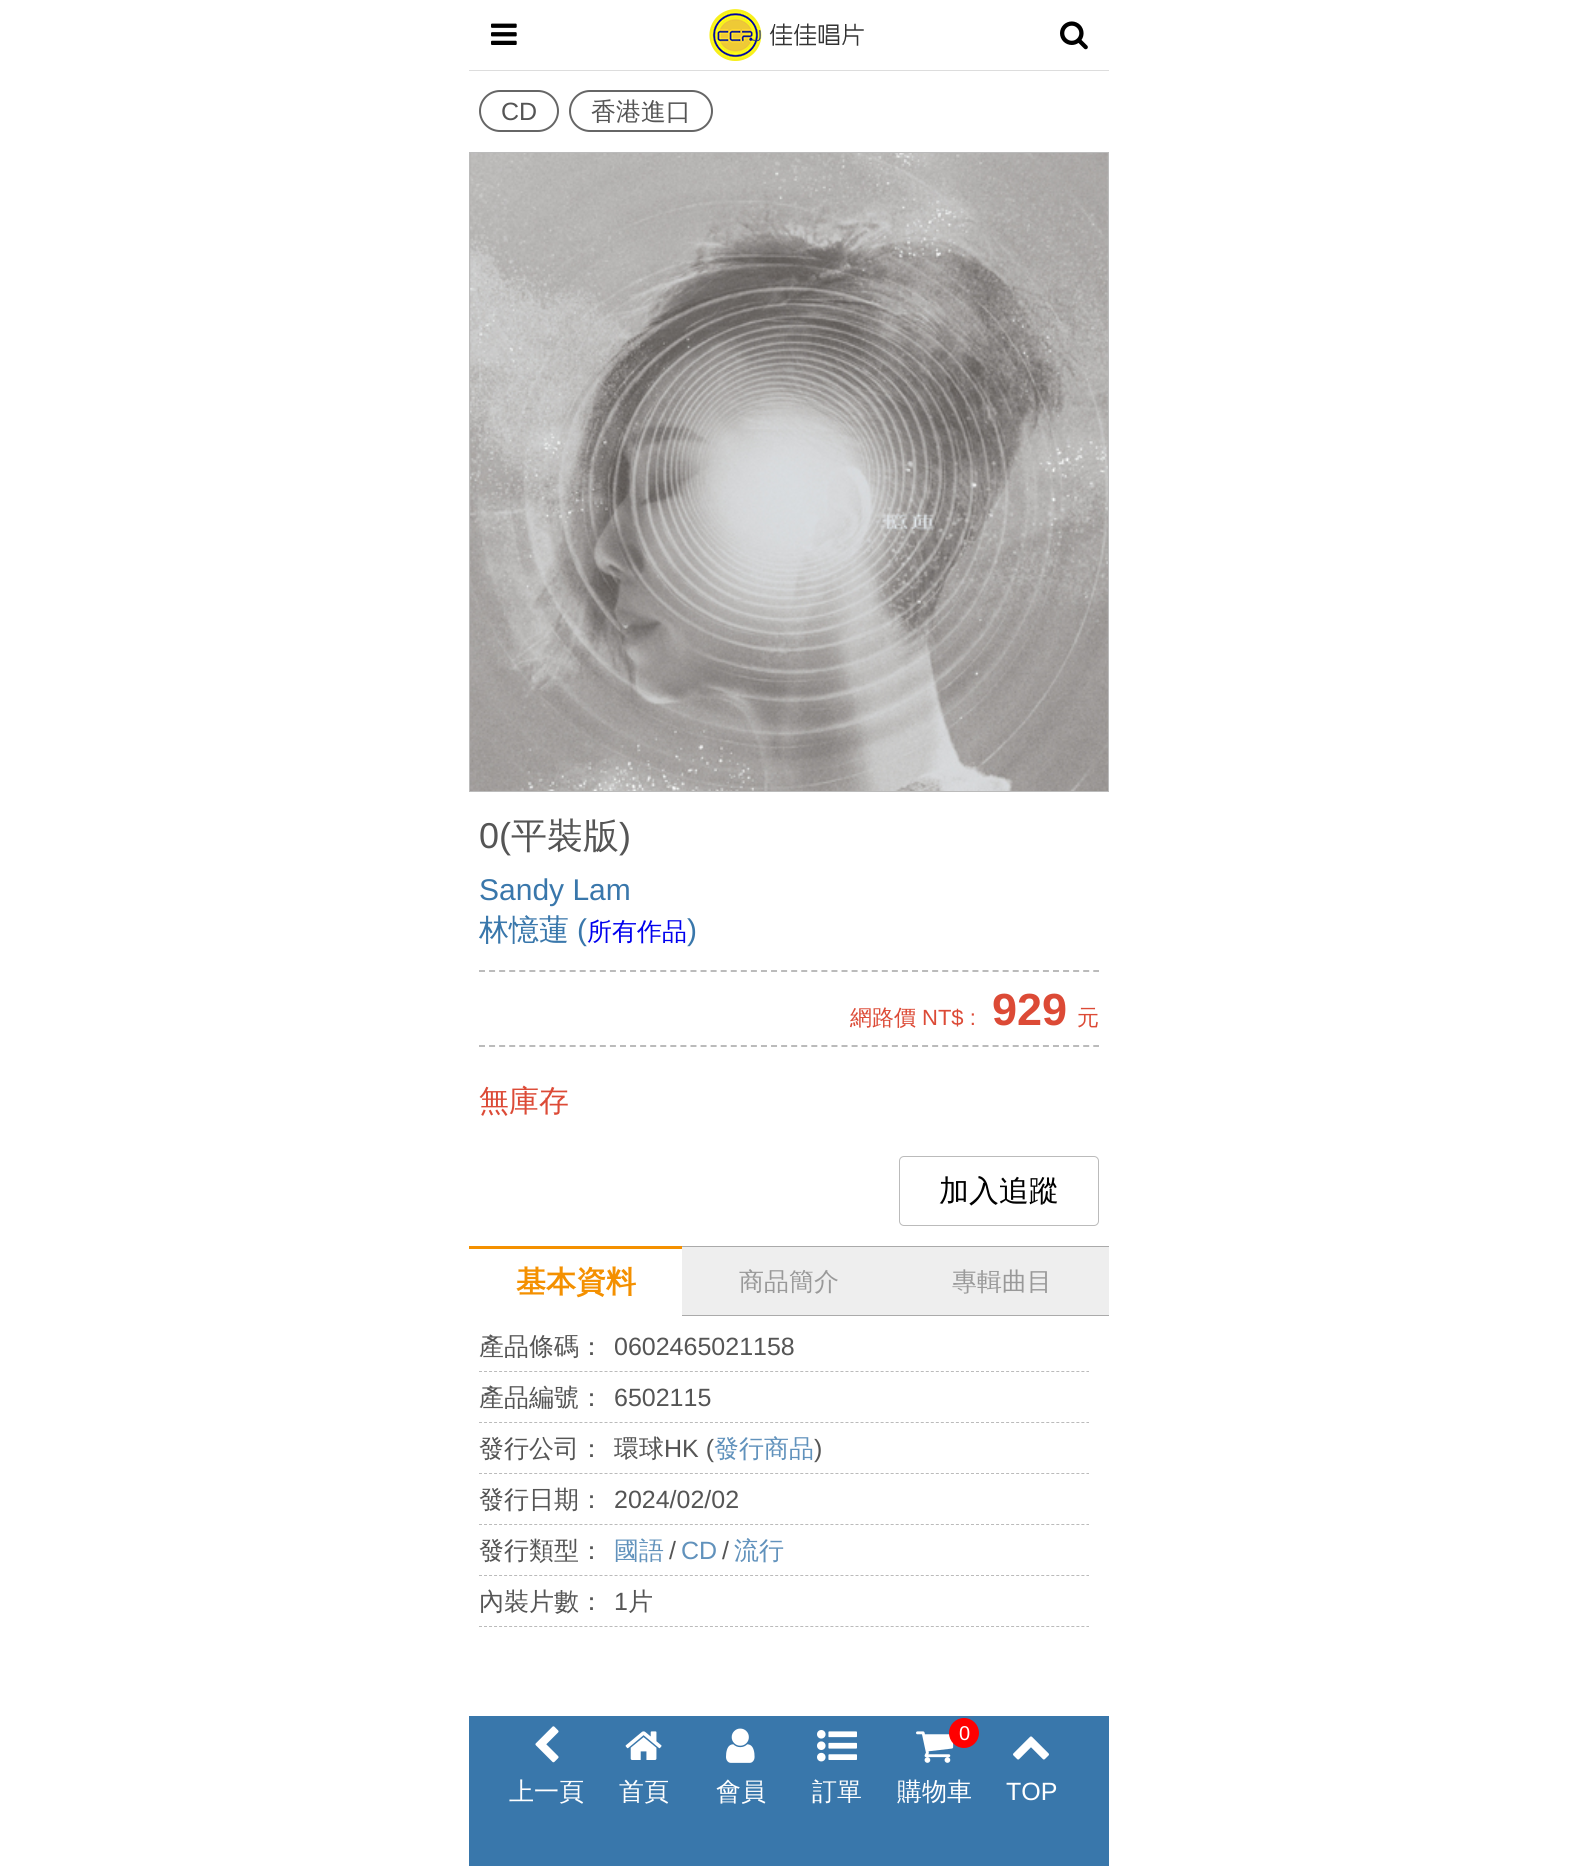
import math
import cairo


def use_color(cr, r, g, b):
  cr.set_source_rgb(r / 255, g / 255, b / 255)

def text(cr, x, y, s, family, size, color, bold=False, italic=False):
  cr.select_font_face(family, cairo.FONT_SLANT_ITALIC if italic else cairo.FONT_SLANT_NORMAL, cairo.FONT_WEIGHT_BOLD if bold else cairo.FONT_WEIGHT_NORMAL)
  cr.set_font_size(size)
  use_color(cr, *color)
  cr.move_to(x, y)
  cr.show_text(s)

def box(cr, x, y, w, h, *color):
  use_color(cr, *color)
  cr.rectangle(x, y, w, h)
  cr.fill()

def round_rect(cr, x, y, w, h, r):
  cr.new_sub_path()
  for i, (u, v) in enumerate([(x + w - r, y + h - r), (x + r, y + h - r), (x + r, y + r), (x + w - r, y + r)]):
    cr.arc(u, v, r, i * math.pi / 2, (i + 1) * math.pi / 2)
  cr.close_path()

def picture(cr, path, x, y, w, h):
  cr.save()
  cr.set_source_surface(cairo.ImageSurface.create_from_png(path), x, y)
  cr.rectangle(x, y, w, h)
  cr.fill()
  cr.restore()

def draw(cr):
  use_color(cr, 255, 255, 255)
  cr.paint()
  box(cr, 469, 70, 640, 1, 221, 221, 221)
  picture(cr, "img_01.png", 491, 23, 26, 22)
  picture(cr, "img_02.png", 709, 9, 155, 52)
  picture(cr, "img_03.png", 1060, 21, 28, 29)
  round_rect(cr, 480, 91, 78, 40, 20)
  use_color(cr, 102, 102, 102)
  cr.stroke()
  round_rect(cr, 570, 91, 142, 40, 20)
  cr.stroke()
  picture(cr, "img_04.png", 470, 153, 638, 638)
  cr.rectangle(469.5, 152.5, 639, 639)
  use_color(cr, 187, 187, 187)
  cr.set_line_width(1)
  cr.stroke()
  cr.new_path()
  cr.move_to(479, 971)
  cr.line_to(1099, 971)
  cr.set_line_width(2)
  cr.set_dash([6, 4.07])
  cr.stroke()
  cr.new_path()
  cr.move_to(479, 1046)
  cr.line_to(1099, 1046)
  cr.stroke()
  round_rect(cr, 899.5, 1156.5, 199, 69, 4.5)
  cr.set_line_width(1)
  cr.set_dash([])
  cr.stroke()
  box(cr, 682, 1247, 427, 68, 238, 238, 238)
  box(cr, 469, 1246, 213, 3, 244, 144, 0)
  box(cr, 682, 1246, 427, 1, 170, 170, 170)
  box(cr, 682, 1315, 427, 1, 170, 170, 170)
  cr.new_path()
  cr.move_to(479, 1371.5)
  cr.line_to(1089, 1371.5)
  use_color(cr, 187, 187, 187)
  cr.set_dash([3, 2.02])
  cr.stroke()
  cr.new_path()
  cr.move_to(479, 1422.5)
  cr.line_to(1089, 1422.5)
  cr.stroke()
  cr.new_path()
  cr.move_to(479, 1473.5)
  cr.line_to(1089, 1473.5)
  cr.stroke()
  cr.new_path()
  cr.move_to(479, 1524.5)
  cr.line_to(1089, 1524.5)
  cr.stroke()
  cr.new_path()
  cr.move_to(479, 1575.5)
  cr.line_to(1089, 1575.5)
  cr.stroke()
  cr.new_path()
  cr.move_to(479, 1626.5)
  cr.line_to(1089, 1626.5)
  cr.stroke()
  box(cr, 469, 1716, 640, 150, 57, 119, 171)
  picture(cr, "img_05.png", 535, 1726, 24, 37)
  picture(cr, "img_06.png", 625, 1731, 37, 29)
  picture(cr, "img_07.png", 726, 1728, 29, 35)
  picture(cr, "img_08.png", 817, 1730, 40, 32)
  picture(cr, "img_09.png", 916, 1731, 38, 32)
  use_color(cr, 255, 0, 0)
  cr.arc(964, 1733, 15, 0, 2 * math.pi)
  cr.fill()
  picture(cr, "img_10.png", 1013, 1736, 36, 24)
  text(cr, 501, 120, "CD", "Liberation Sans", 25, (85, 85, 85))
  text(cr, 591, 120, "香港進口", "WenQuanYi Zen Hei Medium", 25, (85, 85, 85))
  text(cr, 479, 848, "0(", "Liberation Sans", 36, (85, 85, 85))
  text(cr, 511, 848, "平裝版", "WenQuanYi Zen Hei Medium", 36, (85, 85, 85))
  text(cr, 619, 848, ")", "Liberation Sans", 36, (85, 85, 85))
  text(cr, 479, 900, "Sandy Lam", "Liberation Sans", 30, (57, 119, 171))
  text(cr, 479, 940, "林憶蓮", "WenQuanYi Zen Hei Medium", 30, (57, 119, 171))
  text(cr, 577, 940, "(", "Liberation Sans", 30, (57, 119, 171))
  text(cr, 587, 940, "所有作品", "WenQuanYi Zen Hei Medium", 25, (0, 0, 238))
  text(cr, 687, 940, ")", "Liberation Sans", 30, (57, 119, 171))
  text(cr, 850, 1025, "網路價", "WenQuanYi Zen Hei Medium", 22, (220, 74, 54))
  text(cr, 922, 1025, "NT$ :", "Liberation Sans", 22, (220, 74, 54))
  text(cr, 992, 1025, "929", "Liberation Sans", 45, (220, 74, 54), bold=True)
  text(cr, 1077, 1025, "元", "WenQuanYi Zen Hei Medium", 22, (220, 74, 54))
  text(cr, 479, 1111, "無庫存", "WenQuanYi Zen Hei Medium", 30, (220, 74, 54))
  text(cr, 939, 1201, "加入追蹤", "WenQuanYi Zen Hei Medium", 30, (0, 0, 0))
  text(cr, 516, 1292, "基本資料", "WenQuanYi Zen Hei", 30, (244, 144, 0), bold=True)
  text(cr, 739, 1290, "商品簡介", "WenQuanYi Zen Hei Medium", 25, (153, 153, 153))
  text(cr, 952, 1290, "專輯曲目", "WenQuanYi Zen Hei Medium", 25, (153, 153, 153))
  text(cr, 479, 1355, "產品條碼：", "WenQuanYi Zen Hei Medium", 25, (85, 85, 85))
  text(cr, 614, 1355, "0602465021158", "Liberation Sans", 25, (85, 85, 85))
  text(cr, 479, 1406, "產品編號：", "WenQuanYi Zen Hei Medium", 25, (85, 85, 85))
  text(cr, 614, 1406, "6502115", "Liberation Sans", 25, (85, 85, 85))
  text(cr, 479, 1457, "發行公司：", "WenQuanYi Zen Hei Medium", 25, (85, 85, 85))
  text(cr, 614, 1457, "環球", "WenQuanYi Zen Hei Medium", 25, (85, 85, 85))
  text(cr, 664, 1457, "HK (", "Liberation Sans", 25, (85, 85, 85))
  text(cr, 714, 1457, "發行商品", "WenQuanYi Zen Hei Medium", 25, (97, 146, 188))
  text(cr, 814, 1457, ")", "Liberation Sans", 25, (85, 85, 85))
  text(cr, 479, 1508, "發行日期：", "WenQuanYi Zen Hei Medium", 25, (85, 85, 85))
  text(cr, 614, 1508, "2024/02/02", "Liberation Sans", 25, (85, 85, 85))
  text(cr, 479, 1559, "發行類型：", "WenQuanYi Zen Hei Medium", 25, (85, 85, 85))
  text(cr, 614, 1559, "國語", "WenQuanYi Zen Hei Medium", 25, (97, 146, 188))
  text(cr, 669, 1559, "/", "Liberation Sans", 25, (85, 85, 85))
  text(cr, 681, 1559, "CD", "Liberation Sans", 25, (97, 146, 188))
  text(cr, 722, 1559, "/", "Liberation Sans", 25, (85, 85, 85))
  text(cr, 734, 1559, "流行", "WenQuanYi Zen Hei Medium", 25, (97, 146, 188))
  text(cr, 479, 1610, "內裝片數：", "WenQuanYi Zen Hei Medium", 25, (85, 85, 85))
  text(cr, 614, 1610, "1", "Liberation Sans", 25, (85, 85, 85))
  text(cr, 628, 1610, "片", "WenQuanYi Zen Hei Medium", 25, (85, 85, 85))
  text(cr, 509, 1800, "上一頁", "WenQuanYi Zen Hei Medium", 25, (255, 255, 255))
  text(cr, 619, 1800, "首頁", "WenQuanYi Zen Hei Medium", 25, (255, 255, 255))
  text(cr, 716, 1800, "會員", "WenQuanYi Zen Hei Medium", 25, (255, 255, 255))
  text(cr, 812, 1800, "訂單", "WenQuanYi Zen Hei Medium", 25, (255, 255, 255))
  text(cr, 959, 1740, "0", "Liberation Sans", 20, (255, 255, 255))
  text(cr, 897, 1800, "購物車", "WenQuanYi Zen Hei Medium", 25, (255, 255, 255))
  text(cr, 1006, 1800, "TOP", "Liberation Sans", 25, (255, 255, 255))


surface = cairo.ImageSurface(cairo.FORMAT_RGB24, 1578, 1866)
cr = cairo.Context(surface)
options = cairo.FontOptions()
options.set_hint_metrics(cairo.HINT_METRICS_OFF)
options.set_hint_style(cairo.HINT_STYLE_NONE)
cr.set_font_options(options)
cr.set_miter_limit(4)
draw(cr)
surface.write_to_png("out.png")
